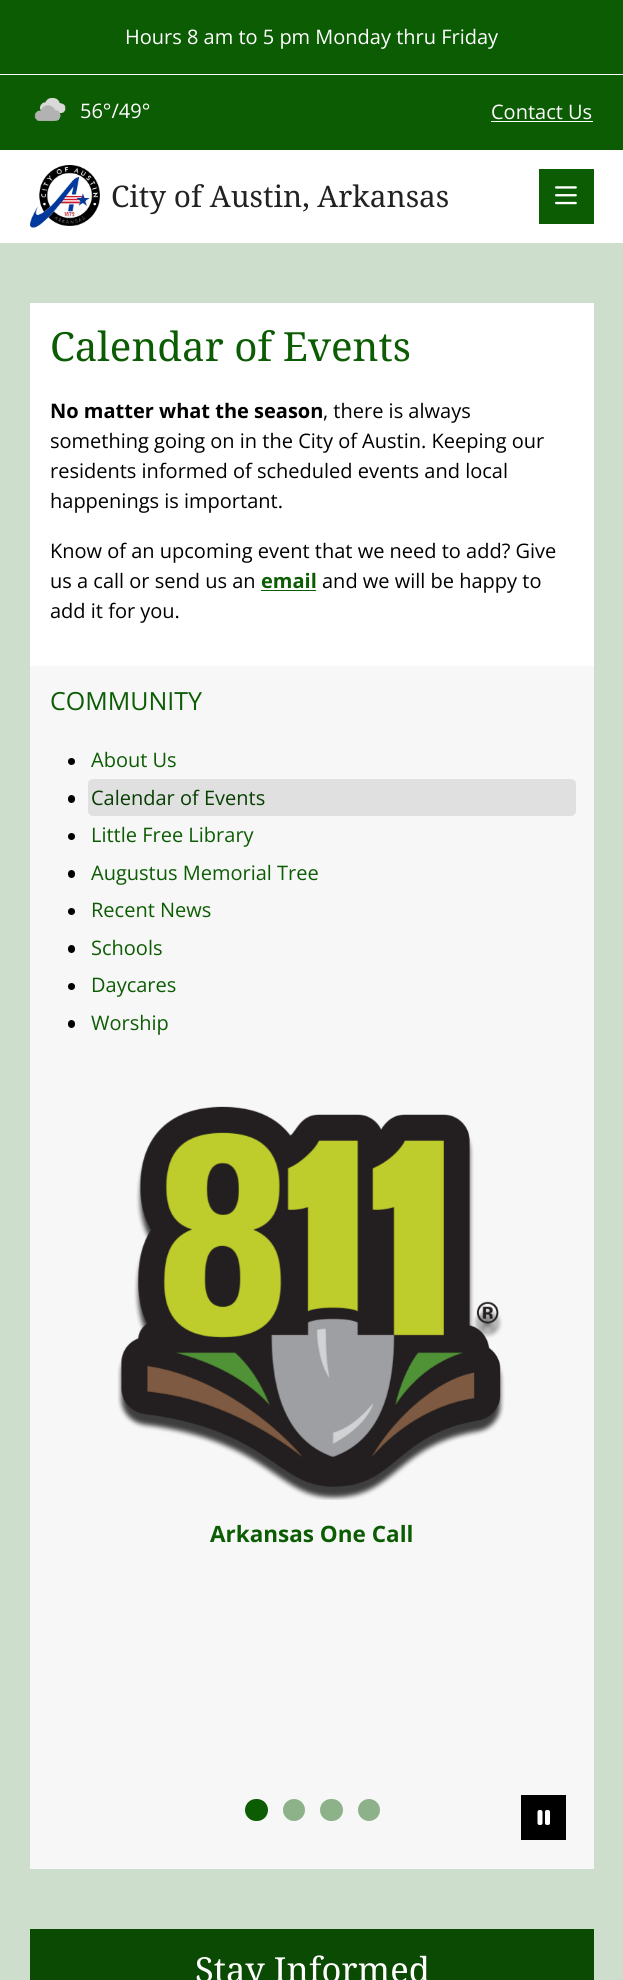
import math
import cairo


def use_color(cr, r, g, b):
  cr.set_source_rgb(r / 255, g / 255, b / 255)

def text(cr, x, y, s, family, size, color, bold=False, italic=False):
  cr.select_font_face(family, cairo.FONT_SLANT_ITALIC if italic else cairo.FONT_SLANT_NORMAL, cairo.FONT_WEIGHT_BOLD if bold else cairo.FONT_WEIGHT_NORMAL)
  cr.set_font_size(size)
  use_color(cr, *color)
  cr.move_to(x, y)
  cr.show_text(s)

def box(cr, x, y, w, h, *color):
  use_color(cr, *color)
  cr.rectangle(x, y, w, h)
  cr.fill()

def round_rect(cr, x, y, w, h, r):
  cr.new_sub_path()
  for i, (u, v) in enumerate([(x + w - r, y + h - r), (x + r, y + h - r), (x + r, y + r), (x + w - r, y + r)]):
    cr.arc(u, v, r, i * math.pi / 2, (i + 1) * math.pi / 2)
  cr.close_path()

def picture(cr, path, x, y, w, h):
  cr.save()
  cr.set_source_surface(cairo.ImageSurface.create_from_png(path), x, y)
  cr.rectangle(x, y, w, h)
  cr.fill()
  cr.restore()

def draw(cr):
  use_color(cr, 206, 222, 205)
  cr.paint()
  box(cr, 0, 0, 623, 150, 12, 92, 3)
  box(cr, 0, 74, 623, 1, 255, 255, 255)
  picture(cr, "img_01.png", 34, 98, 32, 23)
  box(cr, 491, 121, 102, 1, 255, 255, 255)
  box(cr, 0, 150, 623, 93, 255, 255, 255)
  picture(cr, "img_02.png", 30, 165, 70, 63)
  box(cr, 539, 169, 55, 55, 12, 92, 3)
  picture(cr, "img_03.png", 555, 186, 22, 19)
  box(cr, 30, 303, 564, 363, 255, 255, 255)
  box(cr, 261, 590, 55, 1, 12, 92, 3)
  box(cr, 30, 666, 564, 1203, 247, 247, 247)
  use_color(cr, 0, 0, 0)
  cr.arc(71.5, 761.5, 3.5, 0, 2 * math.pi)
  cr.fill()
  round_rect(cr, 68, 795, 7, 8, 3.5)
  cr.fill()
  use_color(cr, 224, 224, 224)
  round_rect(cr, 88, 779, 488, 37, 5)
  cr.fill()
  use_color(cr, 0, 0, 0)
  cr.arc(71.5, 836.5, 3.5, 0, 2 * math.pi)
  cr.fill()
  round_rect(cr, 68, 870, 7, 8, 3.5)
  cr.fill()
  cr.arc(71.5, 911.5, 3.5, 0, 2 * math.pi)
  cr.fill()
  round_rect(cr, 68, 945, 7, 8, 3.5)
  cr.fill()
  cr.arc(71.5, 986.5, 3.5, 0, 2 * math.pi)
  cr.fill()
  round_rect(cr, 68, 1020, 7, 8, 3.5)
  cr.fill()
  picture(cr, "img_04.png", 117, 1106, 388, 394)
  use_color(cr, 12, 92, 3)
  round_rect(cr, 245, 1799, 23, 22, 11)
  cr.fill()
  use_color(cr, 141, 177, 137)
  cr.arc(294, 1810, 11, 0, 2 * math.pi)
  cr.fill()
  round_rect(cr, 320, 1799, 23, 22, 11)
  cr.fill()
  cr.arc(369, 1810, 11, 0, 2 * math.pi)
  cr.fill()
  box(cr, 521, 1795, 45, 45, 0, 0, 0)
  picture(cr, "img_05.png", 537, 1810, 13, 15)
  box(cr, 30, 1929, 564, 51, 10, 74, 2)
  text(cr, 125, 44, "Hours 8 am to 5 pm Monday thru Friday", "Open Sans", 20, (255, 255, 255))
  text(cr, 80, 118, "56°/49°", "Open Sans", 20, (255, 255, 255))
  text(cr, 491, 119, "Contact Us", "Open Sans", 20, (255, 255, 255))
  text(cr, 111, 207, "City of Austin, Arkansas", "Noto Serif", 29.75, (34, 34, 34))
  text(cr, 50, 361, "Calendar of Events", "Noto Serif", 40.25, (12, 92, 3))
  text(cr, 50, 418, "No matter what the season", "Open Sans", 20, (0, 0, 0), bold=True)
  text(cr, 323, 418, ", there is always", "Open Sans", 20, (0, 0, 0))
  text(cr, 50, 448, "something going on in the City of Austin. Keeping our", "Open Sans", 20, (0, 0, 0))
  text(cr, 50, 478, "residents informed of scheduled events and local", "Open Sans", 20, (0, 0, 0))
  text(cr, 50, 508, "happenings is important.", "Open Sans", 20, (0, 0, 0))
  text(cr, 50, 558, "Know of an upcoming event that we need to add? Give", "Open Sans", 20, (0, 0, 0))
  text(cr, 50, 588, "us a call or send us an", "Open Sans", 20, (0, 0, 0))
  text(cr, 261, 588, "email", "Open Sans", 20, (12, 92, 3), bold=True)
  text(cr, 322, 588, "and we will be happy to", "Open Sans", 20, (0, 0, 0))
  text(cr, 50, 618, "add it for you.", "Open Sans", 20, (0, 0, 0))
  text(cr, 50, 710, "COMMUNITY", "Open Sans", 25, (12, 92, 3))
  text(cr, 91, 767, "About Us", "Open Sans", 20, (12, 92, 3))
  text(cr, 91, 805, "Calendar of Events", "Open Sans", 20, (8, 62, 2))
  text(cr, 91, 842, "Little Free Library", "Open Sans", 20, (12, 92, 3))
  text(cr, 91, 880, "Augustus Memorial Tree", "Open Sans", 20, (12, 92, 3))
  text(cr, 91, 917, "Recent News", "Open Sans", 20, (12, 92, 3))
  text(cr, 91, 955, "Schools", "Open Sans", 20, (12, 92, 3))
  text(cr, 91, 992, "Daycares", "Open Sans", 20, (12, 92, 3))
  text(cr, 91, 1030, "Worship", "Open Sans", 20, (12, 92, 3))
  text(cr, 210, 1542, "Arkansas One Call", "Open Sans", 22.5, (12, 92, 3), bold=True)
  text(cr, 195, 1982, "Stay Informed", "Noto Serif", 34.5, (255, 255, 255))


surface = cairo.ImageSurface(cairo.FORMAT_RGB24, 623, 1980)
cr = cairo.Context(surface)
options = cairo.FontOptions()
options.set_hint_metrics(cairo.HINT_METRICS_OFF)
options.set_hint_style(cairo.HINT_STYLE_NONE)
cr.set_font_options(options)
cr.set_miter_limit(4)
draw(cr)
surface.write_to_png("out.png")
